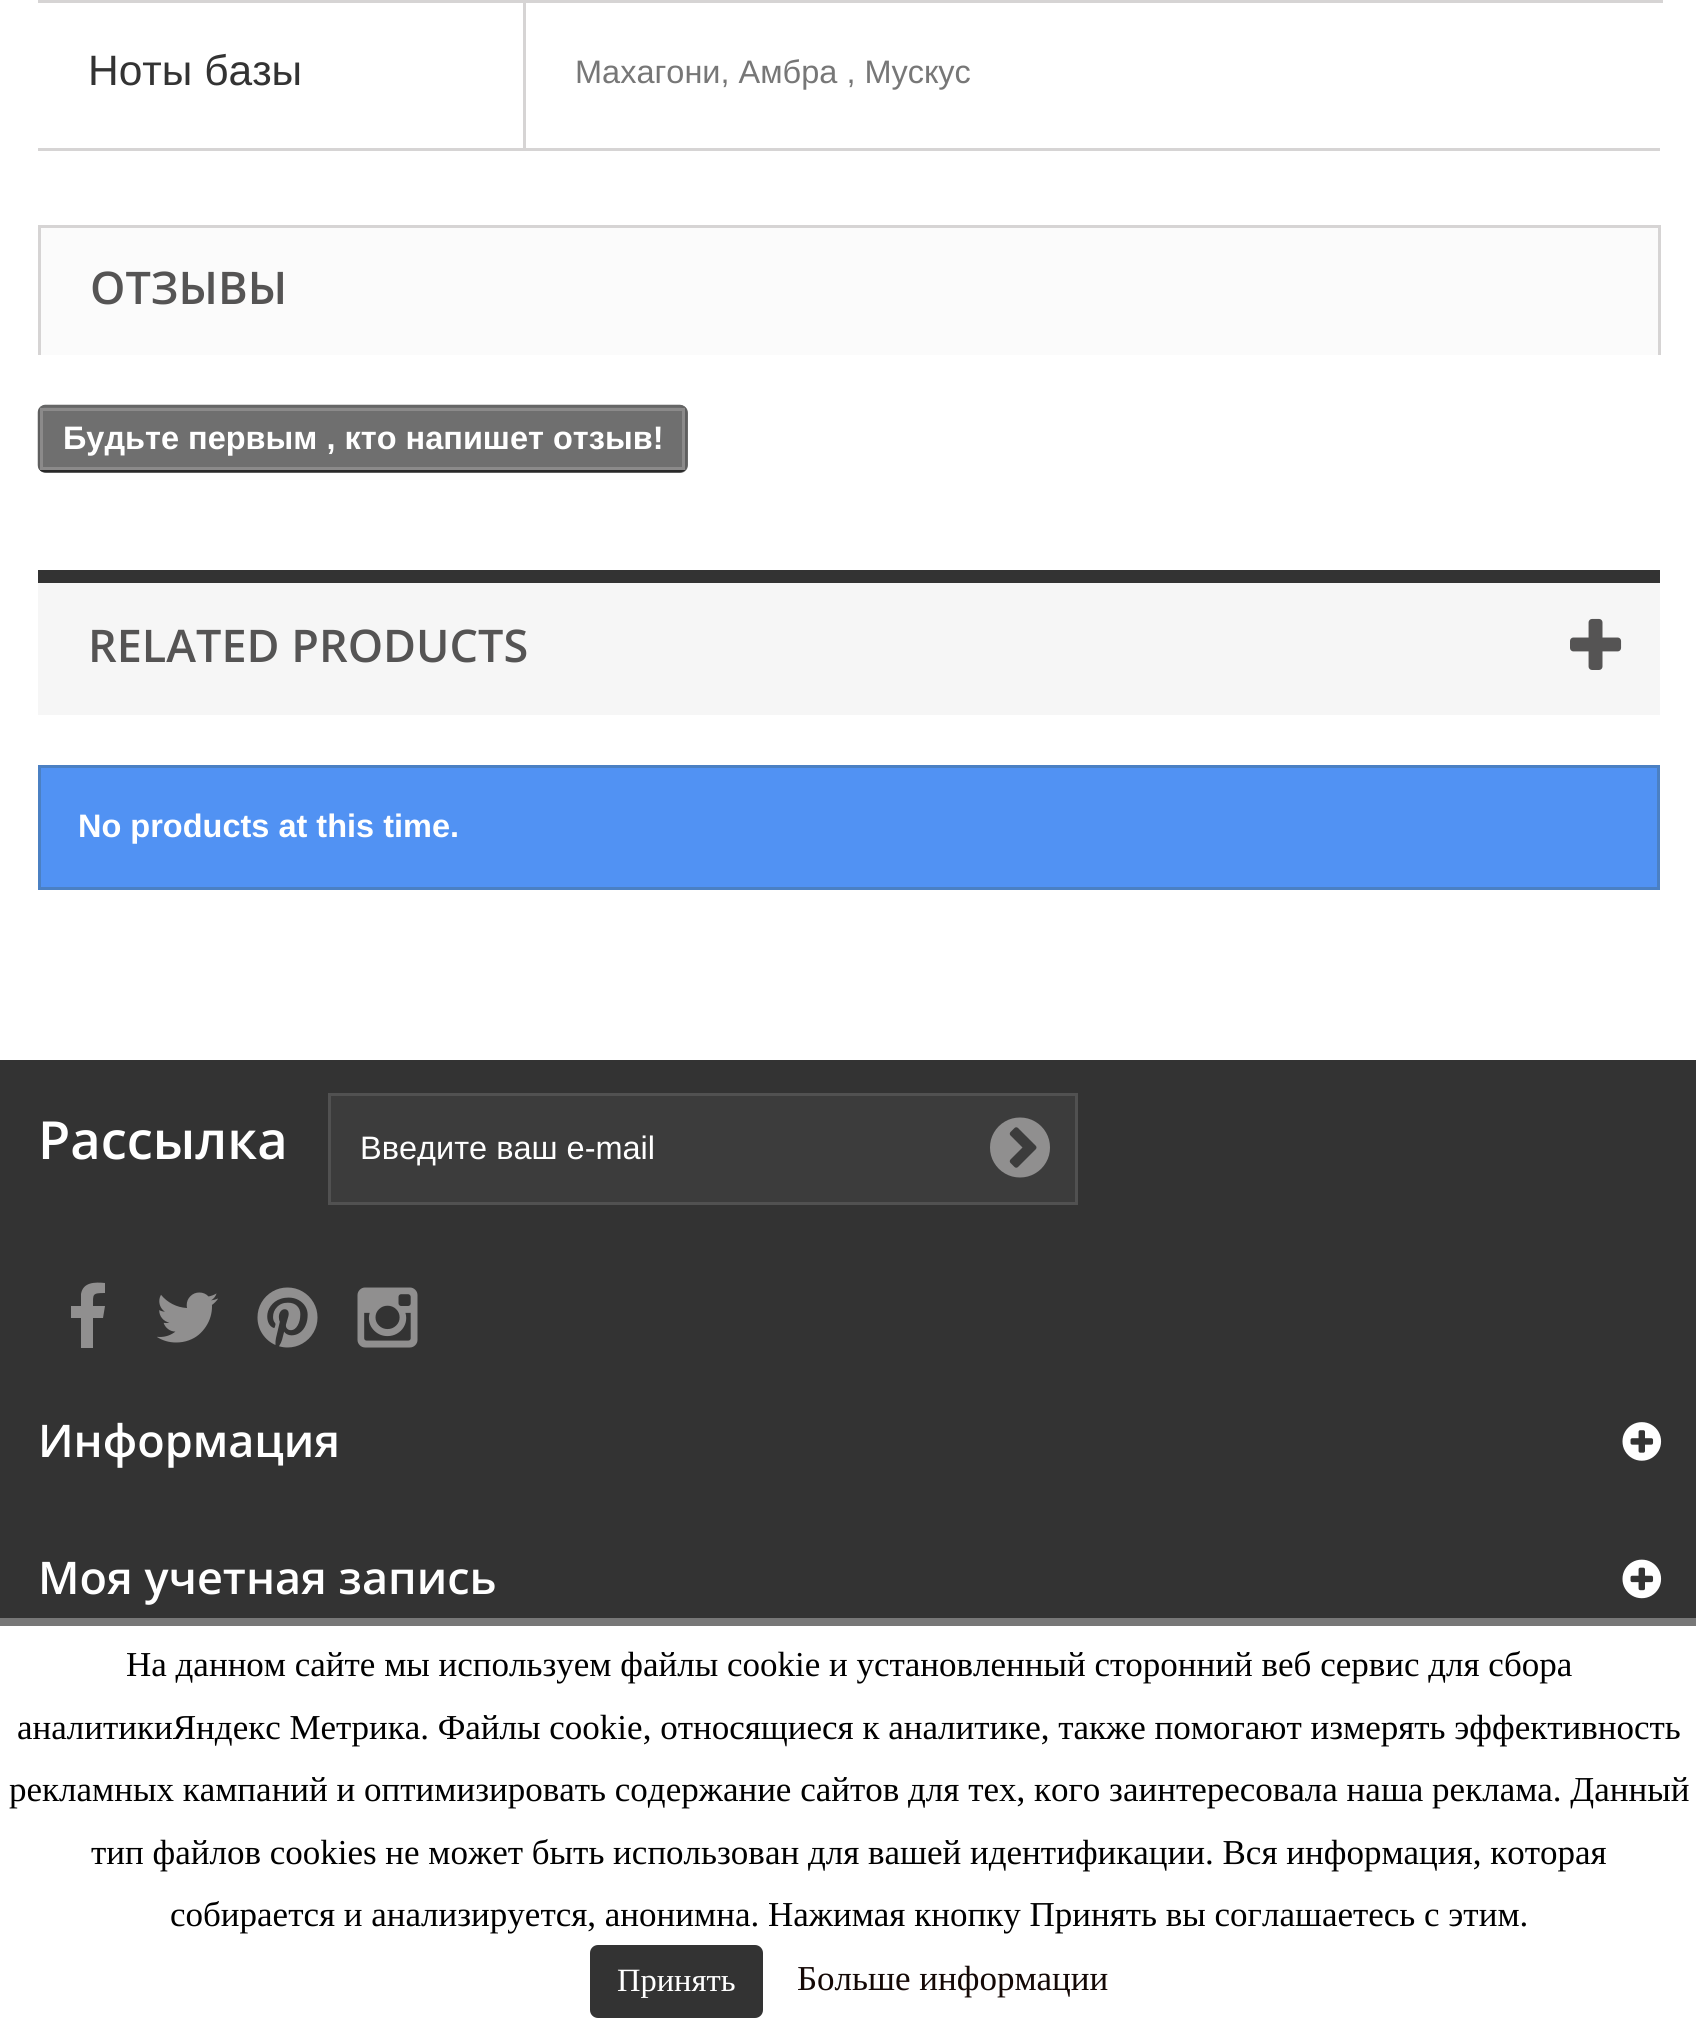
import math
import cairo


def use_color(cr, r, g, b):
  cr.set_source_rgb(r / 255, g / 255, b / 255)

def text(cr, x, y, s, family, size, color, bold=False, italic=False):
  cr.select_font_face(family, cairo.FONT_SLANT_ITALIC if italic else cairo.FONT_SLANT_NORMAL, cairo.FONT_WEIGHT_BOLD if bold else cairo.FONT_WEIGHT_NORMAL)
  cr.set_font_size(size)
  use_color(cr, *color)
  cr.move_to(x, y)
  cr.show_text(s)

def box(cr, x, y, w, h, *color):
  use_color(cr, *color)
  cr.rectangle(x, y, w, h)
  cr.fill()

def round_rect(cr, x, y, w, h, r):
  cr.new_sub_path()
  for i, (u, v) in enumerate([(x + w - r, y + h - r), (x + r, y + h - r), (x + r, y + r), (x + w - r, y + r)]):
    cr.arc(u, v, r, i * math.pi / 2, (i + 1) * math.pi / 2)
  cr.close_path()

def picture(cr, path, x, y, w, h):
  cr.save()
  cr.set_source_surface(cairo.ImageSurface.create_from_png(path), x, y)
  cr.rectangle(x, y, w, h)
  cr.fill()
  cr.restore()

def draw(cr):
  use_color(cr, 255, 255, 255)
  cr.paint()
  box(cr, 38, 148, 1622, 3, 214, 212, 212)
  box(cr, 38, 0, 1625, 3, 214, 212, 212)
  box(cr, 523, 0, 3, 150, 214, 212, 212)
  box(cr, 41, 228, 1617, 127, 251, 251, 251)
  box(cr, 38, 225, 1622, 3, 214, 212, 212)
  box(cr, 1658, 225, 3, 130, 214, 212, 212)
  box(cr, 38, 225, 3, 130, 214, 212, 212)
  use_color(cr, 111, 111, 111)
  round_rect(cr, 38, 405, 650, 68, 8)
  cr.fill()
  cr.new_path()
  cr.move_to(40.5, 408)
  cr.curve_to(42, 407, 43.5, 406, 45, 406)
  cr.line_to(680, 406)
  cr.curve_to(681.5, 406, 683, 407, 684.5, 408)
  use_color(cr, 102, 102, 102)
  cr.set_line_width(2.5)
  cr.stroke()
  cr.new_path()
  cr.move_to(684.5, 408)
  cr.curve_to(685.5, 409.5, 686, 411, 686, 412.5)
  cr.line_to(686, 465)
  cr.curve_to(686, 466.5, 685.5, 468, 684.5, 469.5)
  use_color(cr, 95, 95, 95)
  cr.stroke()
  cr.new_path()
  cr.move_to(684.5, 469.5)
  cr.curve_to(683, 470.5, 681.5, 471, 680, 471)
  cr.line_to(45, 471)
  cr.curve_to(43.5, 471, 42, 470.5, 40.5, 469.5)
  use_color(cr, 41, 41, 41)
  cr.stroke()
  cr.new_path()
  cr.move_to(40.5, 469.5)
  cr.curve_to(39.5, 468, 39, 466.5, 39, 465)
  cr.line_to(39, 412.5)
  cr.curve_to(39, 411, 39.5, 409.5, 40.5, 408)
  use_color(cr, 95, 95, 95)
  cr.stroke()
  cr.rectangle(41.5, 409.5, 642, 59)
  use_color(cr, 139, 138, 138)
  cr.set_line_width(3)
  cr.stroke()
  box(cr, 38, 583, 1622, 132, 246, 246, 246)
  box(cr, 38, 570, 1622, 13, 51, 51, 51)
  picture(cr, "img_01.png", 1570, 618, 52, 52)
  use_color(cr, 81, 146, 243)
  cr.rectangle(39.5, 766.5, 1619, 122)
  cr.fill_preserve()
  use_color(cr, 75, 128, 195)
  cr.stroke()
  box(cr, 0, 1060, 1696, 558, 51, 51, 51)
  use_color(cr, 60, 60, 60)
  cr.rectangle(329.5, 1094.5, 747, 109)
  cr.fill_preserve()
  use_color(cr, 81, 81, 81)
  cr.stroke()
  picture(cr, "img_02.png", 990, 1117, 60, 61)
  use_color(cr, 144, 143, 143)
  cr.new_path()
  cr.move_to(105, 1283)
  cr.line_to(105, 1293)
  cr.curve_to(92, 1293, 93, 1294, 93, 1306)
  cr.line_to(105, 1306)
  cr.line_to(103, 1318)
  cr.line_to(93, 1318)
  cr.line_to(93, 1348)
  cr.line_to(81, 1348)
  cr.line_to(81, 1318)
  cr.line_to(71, 1318)
  cr.line_to(71, 1306)
  cr.line_to(81, 1306)
  cr.line_to(81, 1294)
  cr.curve_to(83, 1282, 95, 1282, 105, 1283)
  cr.close_path()
  cr.fill()
  picture(cr, "img_03.png", 157, 1292, 61, 51)
  picture(cr, "img_04.png", 257, 1287, 61, 61)
  picture(cr, "img_05.png", 357, 1287, 61, 61)
  picture(cr, "img_06.png", 1622, 1422, 40, 39)
  picture(cr, "img_07.png", 1622, 1559, 40, 40)
  box(cr, 0, 1618, 1696, 8, 119, 119, 119)
  use_color(cr, 51, 51, 51)
  round_rect(cr, 590, 1945, 173, 73, 8)
  cr.fill()
  text(cr, 88, 85, "Ноты базы", "Liberation Sans", 42.5, (51, 51, 51))
  text(cr, 575, 83, "Махагони, Амбра , Мускус", "Liberation Sans", 32.5, (119, 119, 119))
  text(cr, 90, 304, "ОТЗЫВЫ", "Open Sans SemiBold", 45, (85, 84, 84))
  text(cr, 63, 449, "Будьте первым , кто напишет отзыв!", "Liberation Sans", 32.5, (255, 255, 255), bold=True)
  text(cr, 88, 662, "RELATED PRODUCTS", "Open Sans SemiBold", 45, (85, 84, 84))
  text(cr, 78, 837, "No products at this time.", "Liberation Sans", 32.5, (255, 255, 255), bold=True)
  text(cr, 38, 1159, "Рассылка", "Open Sans SemiBold", 52.5, (255, 255, 255))
  text(cr, 360, 1159, "Введите ваш e-mail", "Liberation Sans", 32.5, (255, 255, 255))
  text(cr, 38, 1457, "Информация", "Open Sans SemiBold", 45, (255, 255, 255))
  text(cr, 38, 1594, "Моя учетная запись", "Open Sans SemiBold", 45, (255, 255, 255))
  text(cr, 126, 1676, "На данном сайте мы используем файлы cookie и установленный сторонний веб сервис для сбора", "Liberation Serif", 35, (0, 0, 0))
  text(cr, 17, 1739, "аналитикиЯндекс Метрика. Файлы cookie, относящиеся к аналитике, также помогают измерять эффективность", "Liberation Serif", 35, (0, 0, 0))
  text(cr, 9, 1801, "рекламных кампаний и оптимизировать содержание сайтов для тех, кого заинтересовала наша реклама. Данный", "Liberation Serif", 35, (0, 0, 0))
  text(cr, 91, 1864, "тип файлов cookies не может быть использован для вашей идентификации. Вся информация, которая", "Liberation Serif", 35, (0, 0, 0))
  text(cr, 170, 1926, "собирается и анализируется, анонимна. Нажимая кнопку Принять вы соглашаетесь с этим.", "Liberation Serif", 35, (0, 0, 0))
  text(cr, 617, 1991, "Принять", "Liberation Serif", 32.5, (255, 255, 255))
  text(cr, 797, 1990, "Больше информации", "Liberation Serif", 35, (20, 8, 5))


surface = cairo.ImageSurface(cairo.FORMAT_RGB24, 1696, 2025)
cr = cairo.Context(surface)
options = cairo.FontOptions()
options.set_hint_metrics(cairo.HINT_METRICS_OFF)
options.set_hint_style(cairo.HINT_STYLE_NONE)
cr.set_font_options(options)
cr.set_miter_limit(4)
draw(cr)
surface.write_to_png("out.png")
